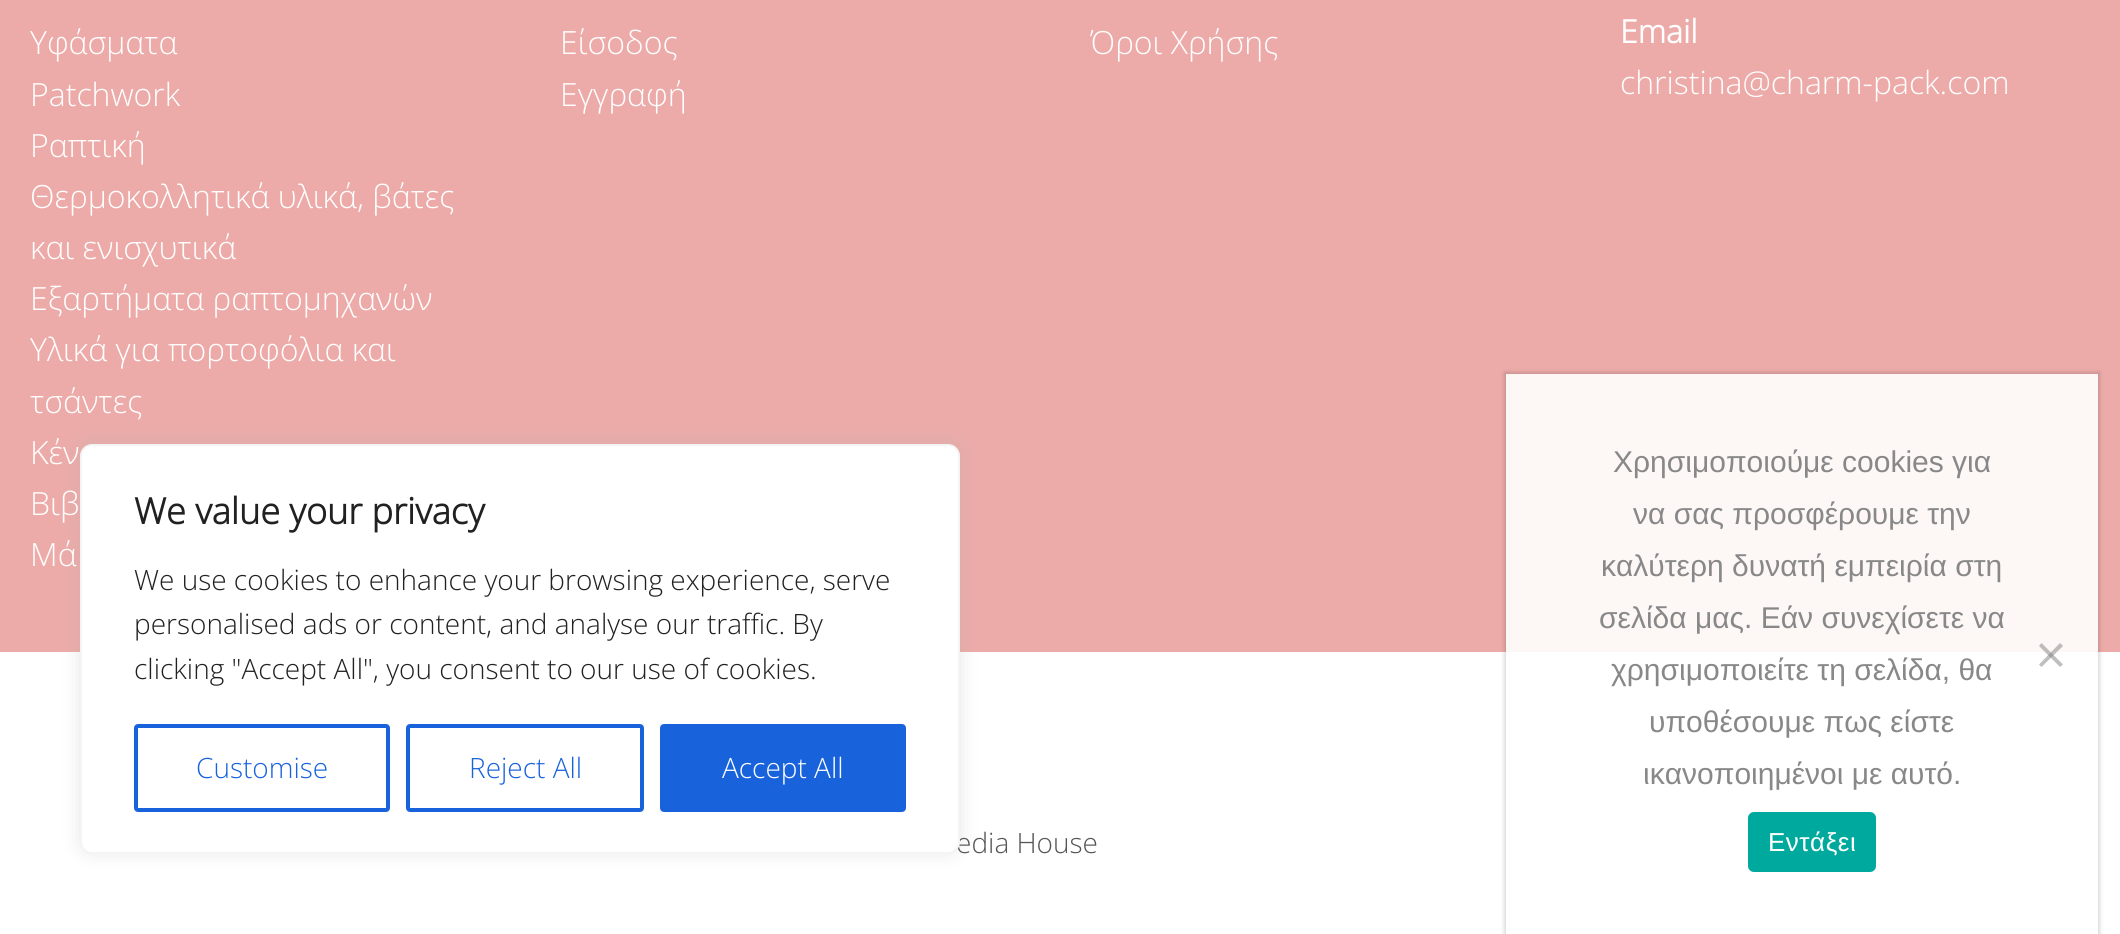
import math
import cairo


def use_color(cr, r, g, b):
  cr.set_source_rgb(r / 255, g / 255, b / 255)

def text(cr, x, y, s, family, size, color, bold=False, italic=False):
  cr.select_font_face(family, cairo.FONT_SLANT_ITALIC if italic else cairo.FONT_SLANT_NORMAL, cairo.FONT_WEIGHT_BOLD if bold else cairo.FONT_WEIGHT_NORMAL)
  cr.set_font_size(size)
  use_color(cr, *color)
  cr.move_to(x, y)
  cr.show_text(s)

def spaced_text(cr, x, y, s, letter, word):
  cr.move_to(x, y)
  for ch in s:
    cr.show_text(ch)
    cr.rel_move_to(letter + word * (ch == ' '), 0)

def box(cr, x, y, w, h, *color):
  use_color(cr, *color)
  cr.rectangle(x, y, w, h)
  cr.fill()

def round_rect(cr, x, y, w, h, r):
  cr.new_sub_path()
  for i, (u, v) in enumerate([(x + w - r, y + h - r), (x + r, y + h - r), (x + r, y + r), (x + w - r, y + r)]):
    cr.arc(u, v, r, i * math.pi / 2, (i + 1) * math.pi / 2)
  cr.close_path()

def shadow(cr, x, y, w, h, r, blur, alpha):
  cr.push_group_with_content(cairo.CONTENT_ALPHA)
  cr.set_operator(cairo.OPERATOR_SOURCE)
  for i in range(15, -16, -2):
    e = blur * i / 6
    if min(w, h) + 2 * e > 0:
      cr.set_source_rgba(0, 0, 0, alpha * math.erfc((i - 1) / 8.5) / 2)
      round_rect(cr, x - e, y - e, w + 2 * e, h + 2 * e, max(0, min(r + e + blur * .6, min(w, h) / 2 + e)))
      cr.fill()
  cr.mask(cr.pop_group())

def draw(cr):
  use_color(cr, 255, 255, 255)
  cr.paint()
  box(cr, 0, 0, 2120, 652, 236, 171, 169)
  box(cr, 1506, 374, 592, 278, 253, 247, 246)
  use_color(cr, 172, 171, 171)
  shadow(cr, 80, 442, 880, 410, 12, 10, 0.3)
  cr.save()
  cr.set_fill_rule(cairo.FILL_RULE_EVEN_ODD)
  cr.new_path()
  cr.move_to(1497, 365)
  cr.line_to(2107, 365)
  cr.line_to(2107, 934)
  cr.line_to(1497, 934)
  cr.close_path()
  cr.move_to(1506, 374)
  cr.line_to(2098, 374)
  cr.line_to(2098, 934)
  cr.line_to(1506, 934)
  cr.close_path()
  cr.clip()
  use_color(cr, 0, 0, 0)
  shadow(cr, 1504, 372, 596, 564, 0, 2, 0.15)
  cr.restore()
  cr.set_source_rgba(0.502, 0.502, 0.502, 0.5)
  cr.new_path()
  cr.move_to(2060, 643)
  cr.line_to(2063, 646)
  cr.line_to(2041.5, 667)
  cr.line_to(2039, 664.5)
  cr.close_path()
  cr.fill()
  cr.new_path()
  cr.move_to(2039, 646)
  cr.line_to(2041.5, 643)
  cr.line_to(2063, 664.5)
  cr.line_to(2060, 667)
  cr.close_path()
  cr.fill()
  use_color(cr, 0, 169, 157)
  round_rect(cr, 1748, 812, 128, 60, 6)
  cr.fill()
  text(cr, 30, 54, "Υφάσματα", "Open Sans Light", 32, (255, 255, 255))
  text(cr, 30, 106, "Patchwork", "Open Sans Light", 32, (255, 255, 255))
  text(cr, 30, 157, "Ραπτική", "Open Sans Light", 32, (255, 255, 255))
  text(cr, 30, 208, "Θερμοκολλητικά υλικά, βάτες", "Open Sans Light", 32, (255, 255, 255))
  text(cr, 30, 259, "και ενισχυτικά", "Open Sans Light", 32, (255, 255, 255))
  text(cr, 30, 310, "Εξαρτήματα ραπτομηχανών", "Open Sans Light", 32, (255, 255, 255))
  text(cr, 30, 361, "Υλικά για πορτοφόλια και", "Open Sans Light", 32, (255, 255, 255))
  text(cr, 30, 413, "τσάντες", "Open Sans Light", 32, (255, 255, 255))
  text(cr, 30, 464, "Κέν", "Open Sans Light", 32, (255, 255, 255))
  text(cr, 30, 515, "Βιβ", "Open Sans Light", 32, (255, 255, 255))
  text(cr, 30, 566, "Μά", "Open Sans Light", 32, (255, 255, 255))
  text(cr, 560, 54, "Είσοδος", "Open Sans Light", 32, (255, 255, 255))
  text(cr, 560, 106, "Εγγραφή", "Open Sans Light", 32, (255, 255, 255))
  text(cr, 1090, 54, "Όροι Χρήσης", "Open Sans Light", 32, (255, 255, 255))
  text(cr, 1620, 43, "Email", "Open Sans", 32, (255, 255, 255), bold=True)
  text(cr, 1620, 94, "christina@charm-pack.com", "Open Sans Light", 32, (255, 255, 255))
  text(cr, 956, 853, "edia House", "Open Sans Light", 28, (85, 85, 85))
  use_color(cr, 255, 255, 255)
  round_rect(cr, 81, 445, 878, 408, 11)
  cr.fill_preserve()
  use_color(cr, 244, 244, 244)
  cr.stroke()
  text(cr, 134, 524, "We value your privacy", "Open Sans", 36, (33, 33, 33), bold=True)
  text(cr, 134, 590, "We use cookies to enhance your browsing experience, serve", "Open Sans Light", 28, (33, 33, 33))
  text(cr, 134, 634, "personalised ads or content, and analyse our traffic. By", "Open Sans Light", 28, (33, 33, 33))
  text(cr, 134, 679, "clicking \"Accept All\", you consent to our use of cookies.", "Open Sans Light", 28, (33, 33, 33))
  round_rect(cr, 136, 726, 252, 84, 2)
  use_color(cr, 24, 99, 220)
  cr.set_line_width(4)
  cr.stroke()
  text(cr, 196, 778, "Customise", "Open Sans Light", 28, (24, 99, 220))
  round_rect(cr, 408, 726, 234, 84, 2)
  cr.stroke()
  text(cr, 469, 778, "Reject All", "Open Sans Light", 28, (24, 99, 220))
  round_rect(cr, 662, 726, 242, 84, 2)
  cr.fill_preserve()
  cr.stroke()
  text(cr, 722, 778, "Accept All", "Open Sans Light", 28, (255, 255, 255))
  text(cr, 1613, 472, "Χρησιμοποιούμε cookies για", "Liberation Sans", 30, (136, 136, 136))
  text(cr, 1633, 524, "να σας προσφέρουμε την", "Liberation Sans", 30, (136, 136, 136))
  text(cr, 1601, 576, "καλύτερη δυνατή εμπειρία στη", "Liberation Sans", 30, (136, 136, 136))
  text(cr, 1599, 628, "σελίδα μας. Εάν συνεχίσετε να", "Liberation Sans", 30, (136, 136, 136))
  text(cr, 1611, 680, "χρησιμοποιείτε τη σελίδα, θα", "Liberation Sans", 30, (136, 136, 136))
  text(cr, 1649, 732, "υποθέσουμε πως είστε", "Liberation Sans", 30, (136, 136, 136))
  text(cr, 1643, 784, "ικανοποιημένοι με αυτό.", "Liberation Sans", 30, (136, 136, 136))
  cr.set_font_size(26)
  use_color(cr, 255, 255, 255)
  spaced_text(cr, 1768, 851, "Εντάξει", 0.5, 0)


surface = cairo.ImageSurface(cairo.FORMAT_RGB24, 2120, 934)
cr = cairo.Context(surface)
options = cairo.FontOptions()
options.set_hint_metrics(cairo.HINT_METRICS_OFF)
options.set_hint_style(cairo.HINT_STYLE_NONE)
cr.set_font_options(options)
cr.set_miter_limit(4)
draw(cr)
surface.write_to_png("out.png")
